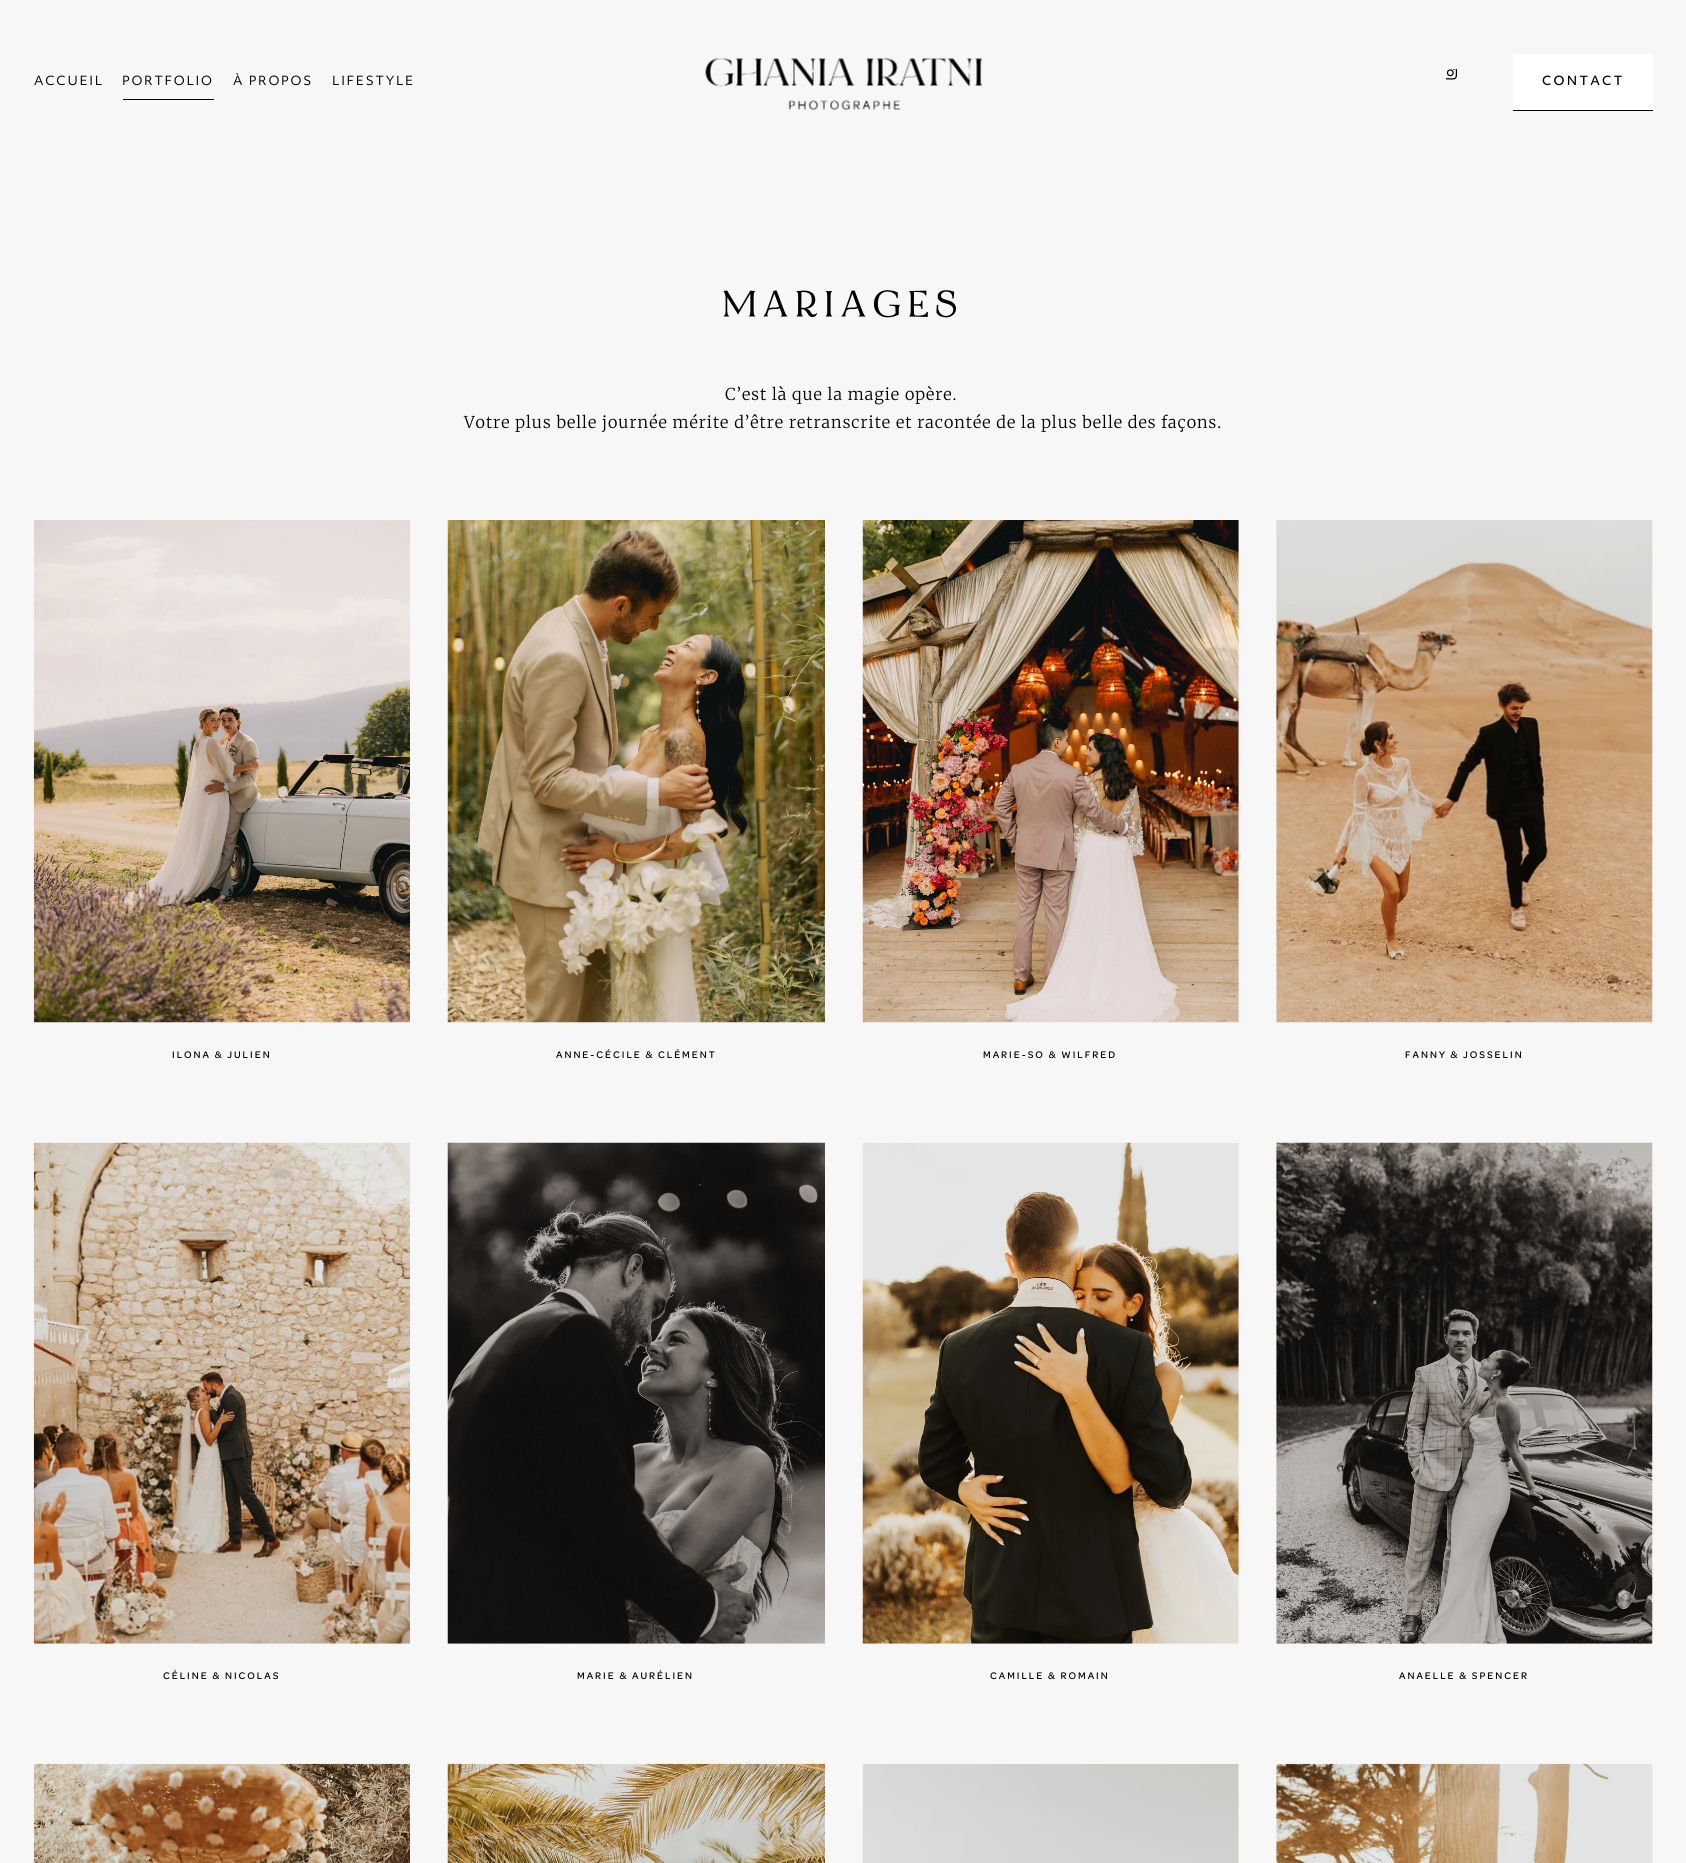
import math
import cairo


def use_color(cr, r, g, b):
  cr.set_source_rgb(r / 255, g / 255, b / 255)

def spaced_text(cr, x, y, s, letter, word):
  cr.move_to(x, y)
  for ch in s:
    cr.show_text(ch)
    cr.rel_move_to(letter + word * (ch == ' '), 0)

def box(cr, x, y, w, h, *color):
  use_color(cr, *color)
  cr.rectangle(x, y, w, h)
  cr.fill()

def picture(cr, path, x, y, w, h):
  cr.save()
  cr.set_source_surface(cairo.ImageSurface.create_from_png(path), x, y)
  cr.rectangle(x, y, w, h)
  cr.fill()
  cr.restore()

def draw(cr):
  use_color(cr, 247, 247, 247)
  cr.paint()
  box(cr, 123, 99, 91, 1, 0, 0, 0)
  picture(cr, "img_01.png", 705, 58, 278, 52)
  picture(cr, "img_02.png", 1446, 69, 12, 11)
  box(cr, 1513, 54, 140, 56, 255, 255, 255)
  box(cr, 1513, 110, 140, 1, 0, 0, 0)
  picture(cr, "img_03.png", 33, 520, 377, 503)
  picture(cr, "img_04.png", 447, 520, 378, 503)
  picture(cr, "img_05.png", 862, 520, 377, 503)
  picture(cr, "img_06.png", 1276, 520, 377, 503)
  picture(cr, "img_07.png", 33, 1142, 377, 502)
  picture(cr, "img_08.png", 447, 1142, 378, 502)
  picture(cr, "img_09.png", 862, 1142, 377, 502)
  picture(cr, "img_10.png", 1276, 1142, 377, 502)
  picture(cr, "img_11.png", 33, 1763, 377, 100)
  picture(cr, "img_12.png", 447, 1763, 378, 100)
  picture(cr, "img_13.png", 862, 1764, 377, 99)
  picture(cr, "img_14.png", 1276, 1763, 377, 100)
  cr.select_font_face("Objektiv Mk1")
  cr.set_font_size(12.25)
  spaced_text(cr, 34, 85, "ACCUEIL", 1.75, 0)
  spaced_text(cr, 122, 85, "PORTFOLIO", 1.75, 0)
  spaced_text(cr, 233, 85, "À PROPOS", 1.75, 0)
  spaced_text(cr, 332, 85, "LIFESTYLE", 1.75, 0)
  cr.select_font_face("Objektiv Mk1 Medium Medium")
  spaced_text(cr, 1542, 85, "CONTACT", 2.25, 0)
  cr.select_font_face("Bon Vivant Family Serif", cairo.FONT_SLANT_NORMAL, cairo.FONT_WEIGHT_BOLD)
  cr.set_font_size(36.5)
  spaced_text(cr, 722, 317, "MARIAGES", 7.25, 0)
  cr.select_font_face("Merriweather Light")
  cr.set_font_size(16.25)
  spaced_text(cr, 725, 400, "C’est là que la magie opère.", 0.98, 0)
  spaced_text(cr, 464, 428, "Votre plus belle journée mérite d’être retranscrite et racontée de la plus belle des façons.", 0.98, 0)
  cr.select_font_face("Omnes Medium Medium")
  cr.set_font_size(10.2)
  spaced_text(cr, 172, 1058, "ILONA & JULIEN", 2, 0)
  spaced_text(cr, 556, 1058, "ANNE-CÉCILE & CLÉMENT", 2, 0)
  spaced_text(cr, 983, 1058, "MARIE-SO & WILFRED", 2, 0)
  spaced_text(cr, 1405, 1058, "FANNY & JOSSELIN", 2, 0)
  spaced_text(cr, 163, 1679, "CÉLINE & NICOLAS", 2, 0)
  spaced_text(cr, 577, 1679, "MARIE & AURÉLIEN", 2, 0)
  spaced_text(cr, 990, 1679, "CAMILLE & ROMAIN", 2, 0)
  spaced_text(cr, 1399, 1679, "ANAELLE & SPENCER", 2, 0)


surface = cairo.ImageSurface(cairo.FORMAT_RGB24, 1686, 1863)
cr = cairo.Context(surface)
options = cairo.FontOptions()
options.set_hint_metrics(cairo.HINT_METRICS_OFF)
options.set_hint_style(cairo.HINT_STYLE_NONE)
cr.set_font_options(options)
cr.set_miter_limit(4)
draw(cr)
surface.write_to_png("out.png")
